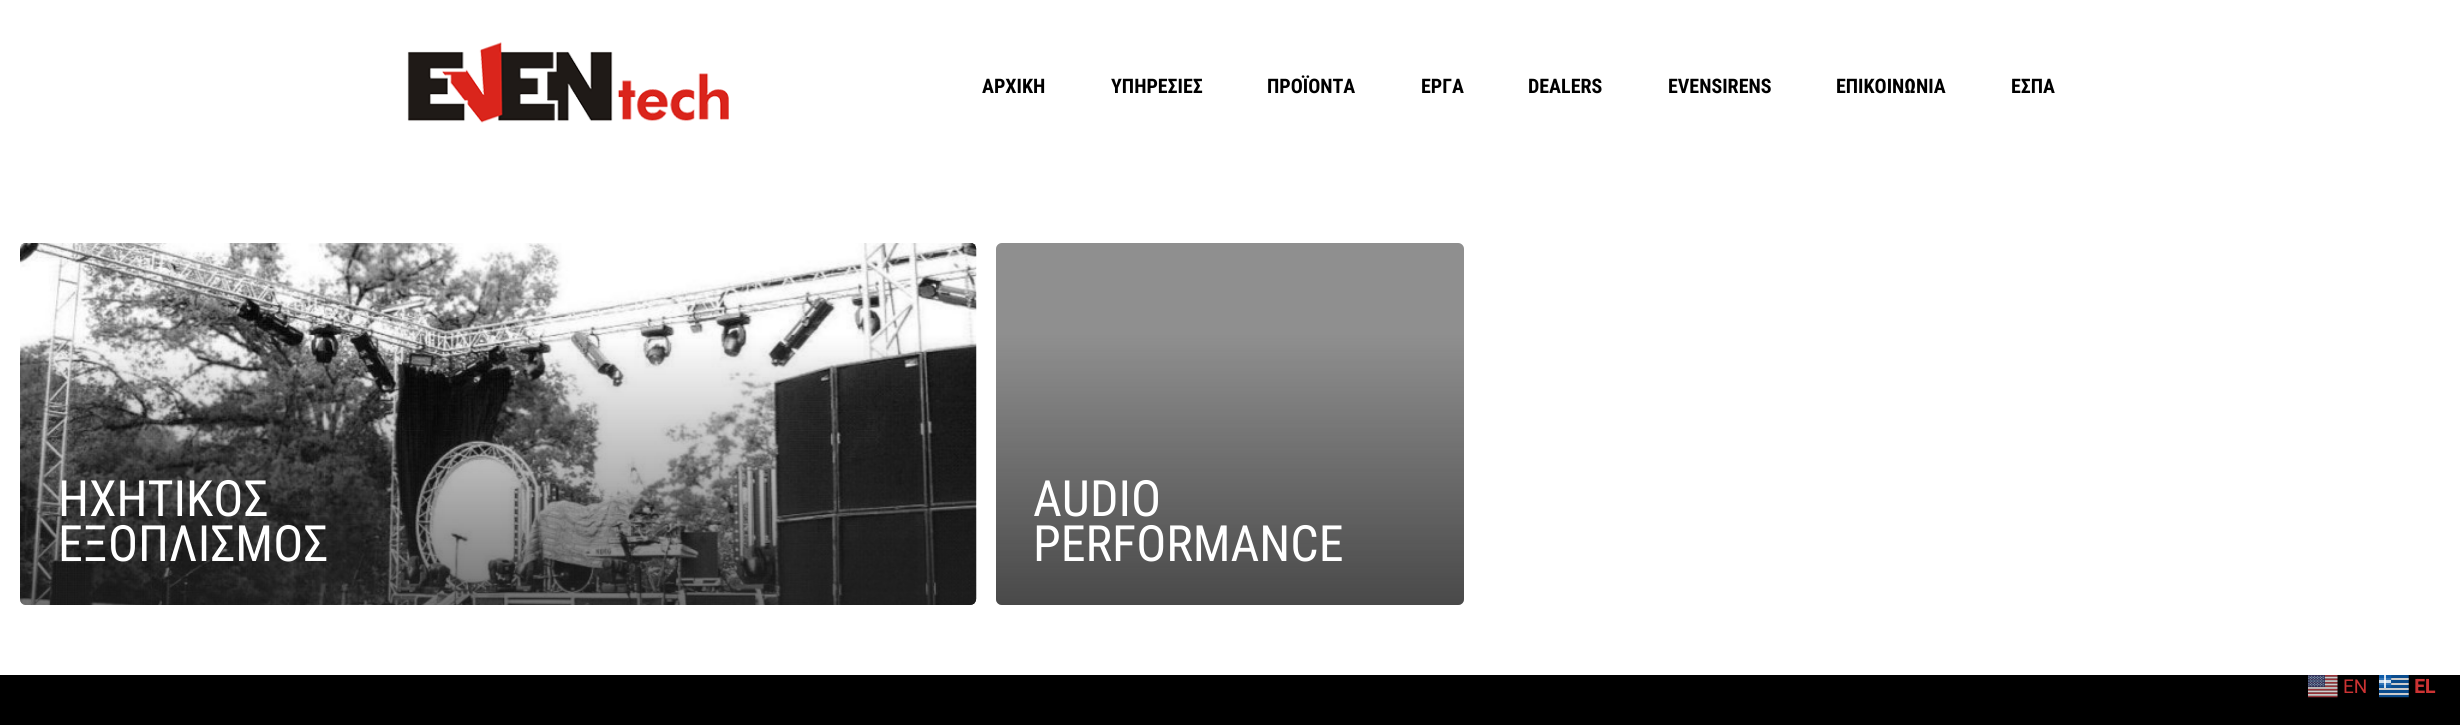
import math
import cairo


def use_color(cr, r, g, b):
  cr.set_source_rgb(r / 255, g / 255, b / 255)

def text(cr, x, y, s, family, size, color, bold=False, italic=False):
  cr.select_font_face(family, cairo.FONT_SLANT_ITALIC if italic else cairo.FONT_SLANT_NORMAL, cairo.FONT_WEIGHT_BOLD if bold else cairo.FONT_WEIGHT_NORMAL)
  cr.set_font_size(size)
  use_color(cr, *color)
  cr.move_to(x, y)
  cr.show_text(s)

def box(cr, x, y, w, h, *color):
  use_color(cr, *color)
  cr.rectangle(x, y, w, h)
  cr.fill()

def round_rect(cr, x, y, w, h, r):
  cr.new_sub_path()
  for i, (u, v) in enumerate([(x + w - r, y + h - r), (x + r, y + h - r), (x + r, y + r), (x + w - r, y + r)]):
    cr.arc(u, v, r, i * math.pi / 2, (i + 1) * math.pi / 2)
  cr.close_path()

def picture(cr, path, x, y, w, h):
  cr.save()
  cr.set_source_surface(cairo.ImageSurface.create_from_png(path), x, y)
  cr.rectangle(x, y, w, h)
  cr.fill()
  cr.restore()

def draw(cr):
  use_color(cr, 255, 255, 255)
  cr.paint()
  picture(cr, "img_01.png", 407, 42, 322, 81)
  use_color(cr, 179, 179, 179)
  round_rect(cr, 20, 243, 956, 362, 6)
  cr.fill()
  picture(cr, "img_02.png", 20, 243, 957, 362)
  gradient = cairo.LinearGradient(501, 334, 501, 606)
  gradient.add_color_stop_rgba(0, 0.137, 0.137, 0.137, 0)
  gradient.add_color_stop_rgba(1, 0.137, 0.137, 0.137, 0.65)
  cr.set_source(gradient)
  cr.new_path()
  cr.move_to(20, 334)
  cr.line_to(976, 334)
  cr.line_to(976, 599)
  cr.curve_to(976, 602.5, 973.5, 605, 970, 605)
  cr.line_to(26, 605)
  cr.curve_to(22.5, 605, 20, 602.5, 20, 599)
  cr.close_path()
  cr.fill()
  use_color(cr, 179, 179, 179)
  round_rect(cr, 996, 243, 468, 362, 6)
  cr.fill()
  cr.set_source_rgba(0, 0, 0, 0.2)
  round_rect(cr, 996, 243, 468, 362, 6)
  cr.fill()
  gradient = cairo.LinearGradient(1231, 334, 1231, 606)
  gradient.add_color_stop_rgba(0, 0.137, 0.137, 0.137, 0)
  gradient.add_color_stop_rgba(1, 0.137, 0.137, 0.137, 0.65)
  cr.set_source(gradient)
  cr.new_path()
  cr.move_to(996, 334)
  cr.line_to(1464, 334)
  cr.line_to(1464, 599)
  cr.curve_to(1464, 602.5, 1461.5, 605, 1458, 605)
  cr.line_to(1002, 605)
  cr.curve_to(998.5, 605, 996, 602.5, 996, 599)
  cr.close_path()
  cr.fill()
  box(cr, 0, 675, 2460, 50, 0, 0, 0)
  picture(cr, "img_03.png", 2308, 675, 30, 23)
  picture(cr, "img_04.png", 2379, 675, 30, 23)
  text(cr, 982, 93, "ΑΡΧΙΚΗ", "Roboto Condensed", 20, (0, 0, 0), bold=True)
  text(cr, 1111, 93, "ΥΠΗΡΕΣΙΕΣ", "Roboto Condensed", 20, (0, 0, 0), bold=True)
  text(cr, 1267, 93, "ΠΡΟΪΟΝΤΑ", "Roboto Condensed", 20, (0, 0, 0), bold=True)
  text(cr, 1421, 93, "ΕΡΓΑ", "Roboto Condensed", 20, (0, 0, 0), bold=True)
  text(cr, 1528, 93, "DEALERS", "Roboto Condensed", 20, (0, 0, 0), bold=True)
  text(cr, 1668, 93, "EVENSIRENS", "Roboto Condensed", 20, (0, 0, 0), bold=True)
  text(cr, 1836, 93, "ΕΠΙΚΟΙΝΩΝΙΑ", "Roboto Condensed", 20, (0, 0, 0), bold=True)
  text(cr, 2011, 93, "ΕΣΠΑ", "Roboto Condensed", 20, (0, 0, 0), bold=True)
  text(cr, 58, 516, "ΗΧΗΤΙΚΟΣ", "Roboto Condensed", 50, (255, 255, 255))
  text(cr, 58, 561, "ΕΞΟΠΛΙΣΜΟΣ", "Roboto Condensed", 50, (255, 255, 255))
  text(cr, 1033, 516, "AUDIO", "Roboto Condensed", 50, (255, 255, 255))
  text(cr, 1033, 561, "PERFORMANCE", "Roboto Condensed", 50, (255, 255, 255))
  text(cr, 2343, 693, "EN", "Roboto", 19, (204, 51, 51))
  text(cr, 2414, 693, "EL", "Roboto", 19, (204, 51, 51), bold=True)


surface = cairo.ImageSurface(cairo.FORMAT_RGB24, 2460, 725)
cr = cairo.Context(surface)
options = cairo.FontOptions()
options.set_hint_metrics(cairo.HINT_METRICS_OFF)
options.set_hint_style(cairo.HINT_STYLE_NONE)
cr.set_font_options(options)
cr.set_miter_limit(4)
draw(cr)
surface.write_to_png("out.png")
